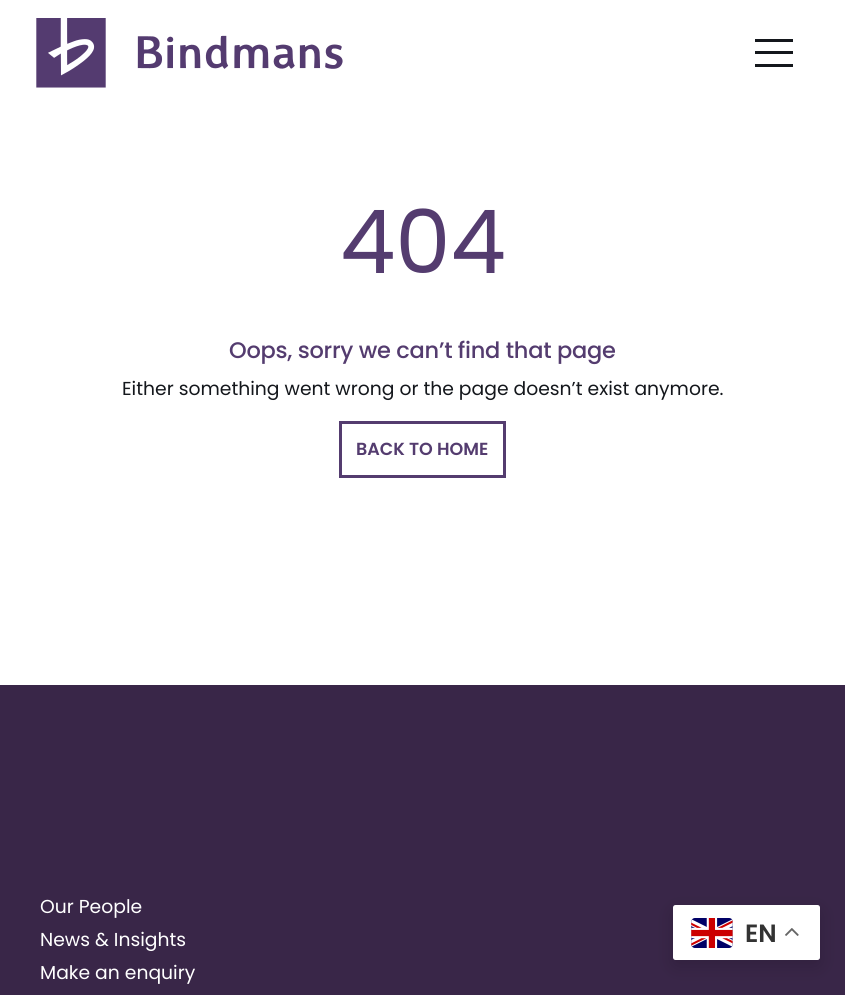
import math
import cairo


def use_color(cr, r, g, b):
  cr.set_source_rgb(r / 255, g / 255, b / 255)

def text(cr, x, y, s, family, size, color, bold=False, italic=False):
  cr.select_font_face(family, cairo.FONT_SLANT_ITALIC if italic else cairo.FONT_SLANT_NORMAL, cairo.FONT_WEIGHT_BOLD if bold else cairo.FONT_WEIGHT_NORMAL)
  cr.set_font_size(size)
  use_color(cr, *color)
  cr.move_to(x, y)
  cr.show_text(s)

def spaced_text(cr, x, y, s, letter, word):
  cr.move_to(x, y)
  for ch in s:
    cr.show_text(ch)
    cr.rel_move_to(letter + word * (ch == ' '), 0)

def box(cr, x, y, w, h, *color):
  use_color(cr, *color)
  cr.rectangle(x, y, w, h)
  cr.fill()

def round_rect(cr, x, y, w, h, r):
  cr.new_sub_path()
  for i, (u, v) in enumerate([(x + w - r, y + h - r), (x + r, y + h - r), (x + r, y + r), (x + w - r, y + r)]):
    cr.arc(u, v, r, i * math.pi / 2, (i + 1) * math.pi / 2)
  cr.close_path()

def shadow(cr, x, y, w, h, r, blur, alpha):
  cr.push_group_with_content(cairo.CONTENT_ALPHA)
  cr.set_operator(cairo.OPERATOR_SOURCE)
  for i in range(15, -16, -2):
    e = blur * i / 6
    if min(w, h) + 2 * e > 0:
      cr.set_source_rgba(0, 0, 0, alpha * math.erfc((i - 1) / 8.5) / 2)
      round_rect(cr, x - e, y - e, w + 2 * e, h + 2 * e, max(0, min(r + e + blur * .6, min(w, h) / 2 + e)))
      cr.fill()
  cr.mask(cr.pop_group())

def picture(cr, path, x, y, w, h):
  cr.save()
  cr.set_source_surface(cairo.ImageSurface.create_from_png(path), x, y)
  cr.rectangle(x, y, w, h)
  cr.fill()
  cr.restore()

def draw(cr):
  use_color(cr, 255, 255, 255)
  cr.paint()
  picture(cr, "img_01.png", 36, 18, 307, 70)
  box(cr, 755, 39, 38, 3, 20, 23, 28)
  box(cr, 755, 51, 38, 3, 20, 23, 28)
  box(cr, 755, 64, 38, 3, 20, 23, 28)
  cr.rectangle(340.5, 422.5, 164, 54)
  use_color(cr, 84, 60, 111)
  cr.set_line_width(3)
  cr.stroke()
  box(cr, 0, 685, 845, 310, 57, 38, 72)
  use_color(cr, 0, 0, 0)
  shadow(cr, 673, 911, 147, 55, 2.5, 9.5, 0.15)
  use_color(cr, 255, 255, 255)
  round_rect(cr, 673, 905, 147, 55, 2.5)
  cr.fill()
  picture(cr, "img_02.png", 691, 918, 42, 30)
  picture(cr, "img_03.png", 785, 928, 14, 8)
  text(cr, 340, 273, "404", "Poppins", 88, (84, 60, 111))
  cr.select_font_face("Poppins Medium")
  cr.set_font_size(22.5)
  spaced_text(cr, 229, 358, "Oops, sorry we can’t find that page", -0.25, 0)
  text(cr, 122, 395, "Either something went wrong or the page doesn’t exist anymore.", "Poppins", 18.75, (20, 23, 28))
  text(cr, 356, 455, "BACK TO HOME", "Poppins SemiBold", 17.5, (84, 60, 111))
  text(cr, 40, 913, "Our People", "Poppins", 18.75, (255, 255, 255))
  text(cr, 40, 946, "News & Insights", "Poppins", 18.75, (255, 255, 255))
  text(cr, 40, 979, "Make an enquiry", "Poppins", 18.75, (255, 255, 255))
  text(cr, 745, 942, "EN", "Poppins SemiBold", 25, (51, 51, 51))


surface = cairo.ImageSurface(cairo.FORMAT_RGB24, 845, 995)
cr = cairo.Context(surface)
options = cairo.FontOptions()
options.set_hint_metrics(cairo.HINT_METRICS_OFF)
options.set_hint_style(cairo.HINT_STYLE_NONE)
cr.set_font_options(options)
cr.set_miter_limit(4)
draw(cr)
surface.write_to_png("out.png")
